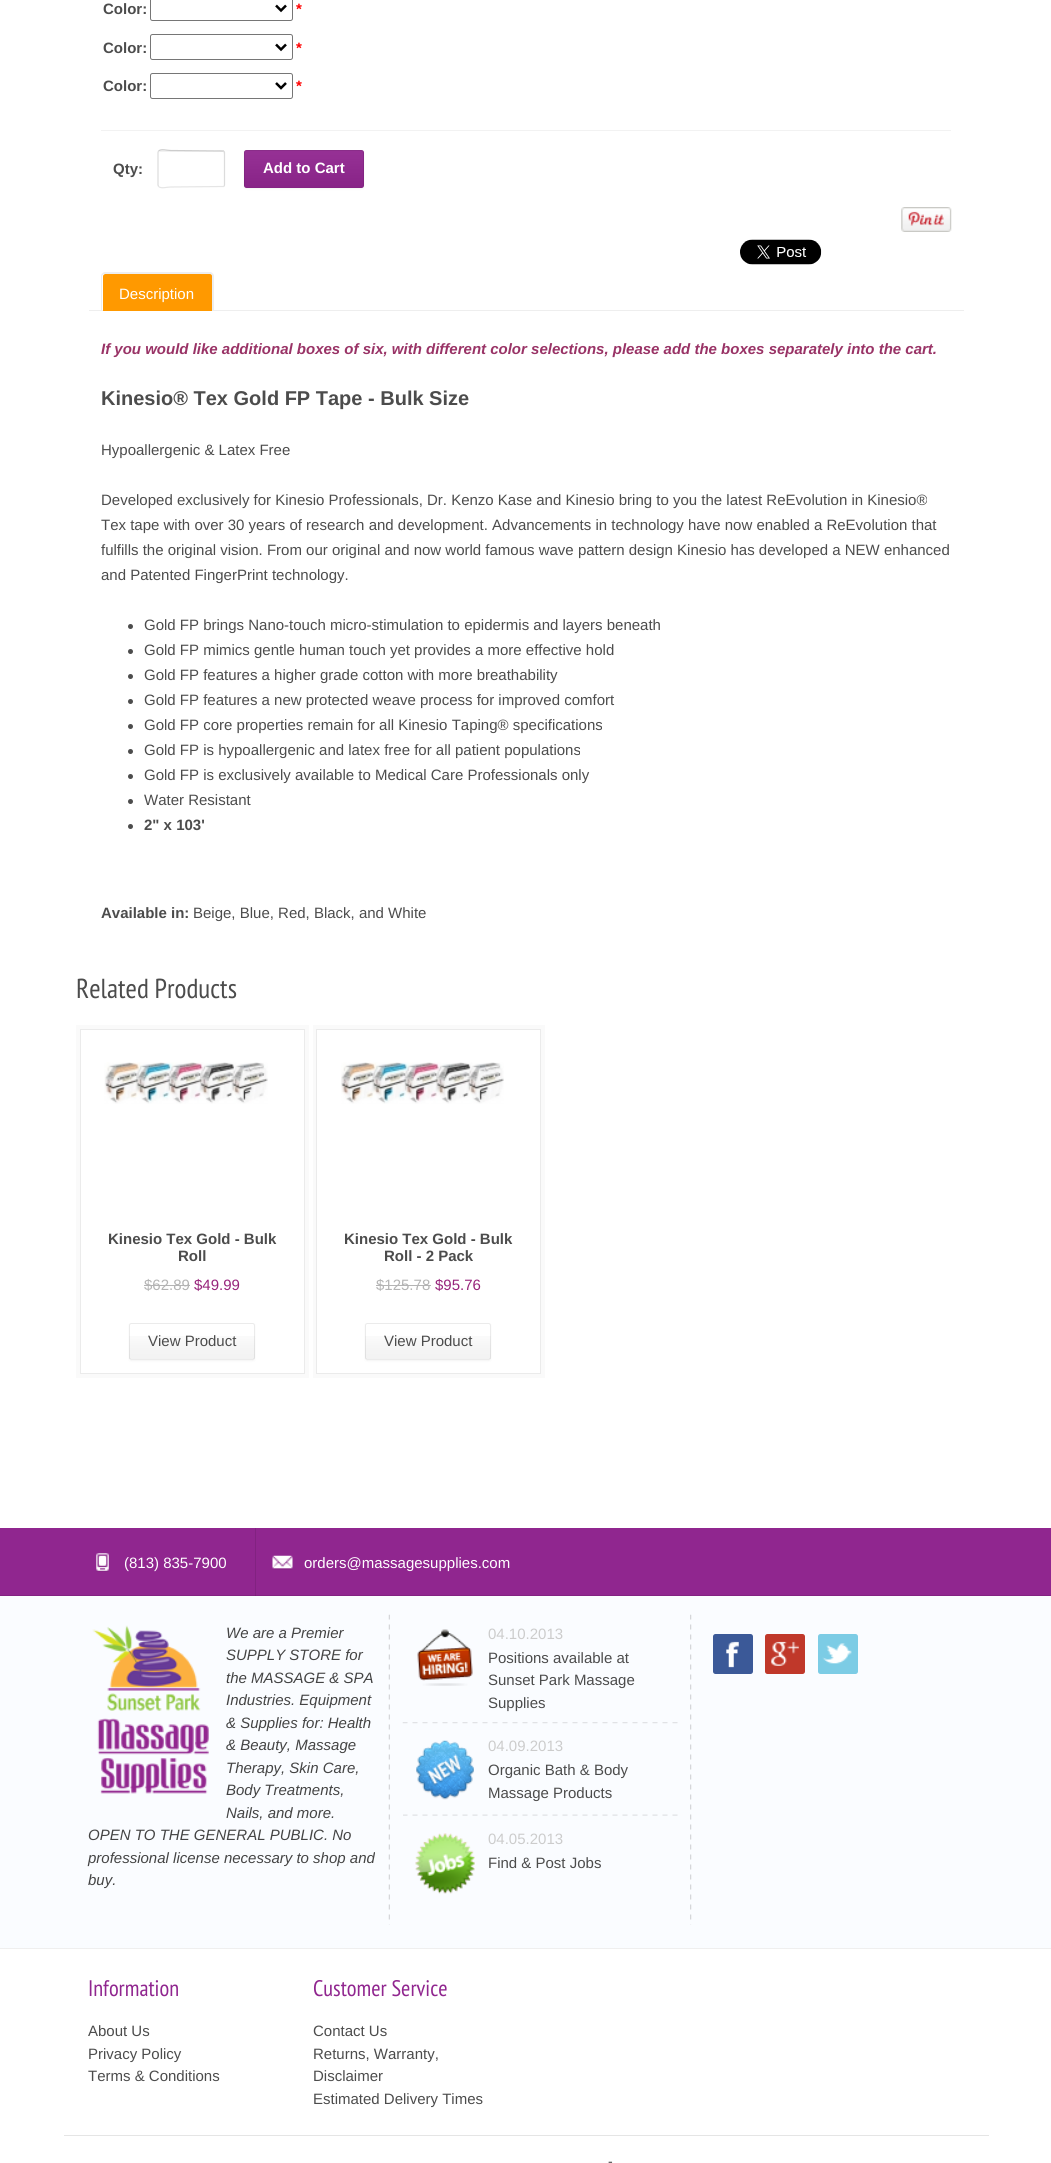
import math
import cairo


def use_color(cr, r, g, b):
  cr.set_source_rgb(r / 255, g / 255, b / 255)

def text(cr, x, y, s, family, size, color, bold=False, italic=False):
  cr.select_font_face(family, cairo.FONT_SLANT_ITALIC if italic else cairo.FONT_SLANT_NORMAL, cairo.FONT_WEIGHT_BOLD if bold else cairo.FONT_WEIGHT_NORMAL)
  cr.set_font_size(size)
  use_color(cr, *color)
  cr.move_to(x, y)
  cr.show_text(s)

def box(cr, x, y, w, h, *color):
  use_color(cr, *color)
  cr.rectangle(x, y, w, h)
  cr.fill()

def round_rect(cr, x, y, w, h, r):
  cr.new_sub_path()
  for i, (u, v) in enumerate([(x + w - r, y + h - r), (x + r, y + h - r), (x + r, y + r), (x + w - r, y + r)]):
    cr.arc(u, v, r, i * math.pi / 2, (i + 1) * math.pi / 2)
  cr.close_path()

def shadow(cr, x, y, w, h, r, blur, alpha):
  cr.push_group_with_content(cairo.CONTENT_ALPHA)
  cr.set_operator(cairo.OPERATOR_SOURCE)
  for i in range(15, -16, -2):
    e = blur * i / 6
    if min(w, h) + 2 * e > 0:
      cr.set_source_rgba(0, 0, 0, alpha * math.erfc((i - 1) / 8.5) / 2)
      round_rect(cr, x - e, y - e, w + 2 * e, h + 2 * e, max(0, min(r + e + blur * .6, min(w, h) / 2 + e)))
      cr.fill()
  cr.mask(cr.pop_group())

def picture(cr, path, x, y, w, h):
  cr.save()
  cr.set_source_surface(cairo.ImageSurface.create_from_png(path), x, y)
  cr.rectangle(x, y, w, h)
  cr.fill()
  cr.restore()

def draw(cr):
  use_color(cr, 255, 255, 255)
  cr.paint()
  round_rect(cr, 150.5, -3.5, 142, 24, 2)
  use_color(cr, 118, 118, 118)
  cr.set_line_width(1)
  cr.stroke()
  cr.new_path()
  cr.move_to(276, 5.5)
  cr.line_to(281, 10.5)
  cr.line_to(286, 5.5)
  use_color(cr, 0, 0, 0)
  cr.set_line_width(2.5)
  cr.stroke()
  round_rect(cr, 150.5, 34.5, 142, 25, 2)
  use_color(cr, 118, 118, 118)
  cr.set_line_width(1)
  cr.stroke()
  cr.new_path()
  cr.move_to(276, 44.5)
  cr.line_to(281, 49.5)
  cr.line_to(286, 44.5)
  use_color(cr, 0, 0, 0)
  cr.set_line_width(2.5)
  cr.stroke()
  round_rect(cr, 150.5, 73.5, 142, 25, 2)
  use_color(cr, 118, 118, 118)
  cr.set_line_width(1)
  cr.stroke()
  cr.new_path()
  cr.move_to(276, 83)
  cr.line_to(281, 88)
  cr.line_to(286, 83)
  use_color(cr, 0, 0, 0)
  cr.set_line_width(2.5)
  cr.stroke()
  box(cr, 101, 130, 850, 1, 242, 242, 242)
  cr.new_path()
  cr.move_to(160, 152)
  cr.line_to(223, 152)
  cr.line_to(224, 154)
  cr.curve_to(224, 148, 220, 151, 212, 151)
  cr.line_to(170, 151)
  cr.curve_to(163, 151, 159, 148, 159, 154)
  cr.curve_to(159, 153, 159, 152, 160, 152)
  cr.close_path()
  cr.fill()
  cr.new_path()
  cr.move_to(158.5, 151)
  cr.curve_to(161.5, 148.5, 166.5, 150.5, 170.5, 150.5)
  cr.line_to(224, 151)
  use_color(cr, 204, 204, 204)
  cr.set_line_width(1.2)
  cr.stroke()
  cr.new_path()
  cr.move_to(224, 151)
  cr.line_to(224.5, 152.5)
  cr.line_to(224.5, 185)
  cr.line_to(224, 186.5)
  use_color(cr, 220, 220, 220)
  cr.stroke()
  cr.new_path()
  cr.move_to(224, 186.5)
  cr.line_to(170.5, 187)
  cr.curve_to(166.5, 187, 161.5, 189, 158.5, 186.5)
  use_color(cr, 229, 229, 229)
  cr.stroke()
  cr.new_path()
  cr.move_to(158.5, 186.5)
  cr.line_to(158, 185)
  cr.line_to(158, 152.5)
  cr.line_to(158.5, 151)
  use_color(cr, 220, 220, 220)
  cr.stroke()
  use_color(cr, 0, 0, 0)
  shadow(cr, 244, 151, 120, 38, 2.5, 1, 0.05)
  use_color(cr, 144, 38, 143)
  round_rect(cr, 244, 150, 120, 38, 2.5)
  cr.fill()
  picture(cr, "img_01.png", 244, 150, 120, 37)
  round_rect(cr, 244.5, 150.5, 119, 37, 2)
  cr.set_source_rgba(0, 0, 0, 0.08)
  cr.set_line_width(1)
  cr.stroke()
  picture(cr, "img_02.png", 901, 207, 51, 25)
  picture(cr, "img_03.png", 740, 239, 82, 26)
  box(cr, 89, 310, 875, 1, 238, 238, 238)
  use_color(cr, 255, 153, 0)
  cr.new_path()
  cr.move_to(105.5, 274)
  cr.line_to(210.5, 274)
  cr.curve_to(212, 274, 213, 275, 213, 276.5)
  cr.line_to(213, 311)
  cr.line_to(103, 311)
  cr.line_to(103, 276.5)
  cr.curve_to(103, 275, 104, 274, 105.5, 274)
  cr.close_path()
  cr.fill()
  use_color(cr, 238, 238, 238)
  cr.set_fill_rule(cairo.FILL_RULE_EVEN_ODD)
  cr.new_path()
  cr.move_to(105, 272)
  cr.line_to(210, 272)
  cr.curve_to(212, 272, 214, 274, 214, 276)
  cr.line_to(214, 311)
  cr.line_to(101, 311)
  cr.line_to(101, 276)
  cr.curve_to(101, 274, 103, 272, 105, 272)
  cr.close_path()
  cr.move_to(105, 274)
  cr.line_to(210, 274)
  cr.curve_to(211, 274, 212, 275, 212, 276)
  cr.line_to(212, 311)
  cr.line_to(102, 311)
  cr.line_to(102, 276)
  cr.curve_to(102, 275, 104, 274, 105, 274)
  cr.close_path()
  cr.fill()
  use_color(cr, 76, 76, 76)
  cr.arc(130.5, 626.5, 2.5, 0, 2 * math.pi)
  cr.fill()
  cr.arc(130.5, 651.5, 2.5, 0, 2 * math.pi)
  cr.fill()
  cr.arc(130.5, 676.5, 2.5, 0, 2 * math.pi)
  cr.fill()
  cr.arc(130.5, 701.5, 2.5, 0, 2 * math.pi)
  cr.fill()
  cr.arc(130.5, 726.5, 2.5, 0, 2 * math.pi)
  cr.fill()
  cr.arc(130.5, 751.5, 2.5, 0, 2 * math.pi)
  cr.fill()
  cr.arc(130.5, 776.5, 2.5, 0, 2 * math.pi)
  cr.fill()
  cr.arc(130.5, 801.5, 2.5, 0, 2 * math.pi)
  cr.fill()
  cr.arc(130.5, 826.5, 2.5, 0, 2 * math.pi)
  cr.fill()
  box(cr, 76, 1025, 233, 353, 250, 250, 250)
  use_color(cr, 255, 255, 255)
  cr.rectangle(80.5, 1029.5, 224, 344)
  cr.fill_preserve()
  use_color(cr, 235, 235, 235)
  cr.stroke()
  picture(cr, "img_04.png", 104, 1062, 164, 42)
  box(cr, 144, 1285, 46, 1, 180, 180, 180)
  use_color(cr, 0, 0, 0)
  shadow(cr, 129, 1324, 126, 37, 2.5, 1, 0.05)
  use_color(cr, 255, 255, 255)
  round_rect(cr, 129, 1323, 126, 37, 2.5)
  cr.fill()
  picture(cr, "img_05.png", 129, 1336, 126, 23)
  round_rect(cr, 129.5, 1323.5, 125, 36, 2)
  cr.set_source_rgba(0, 0, 0, 0.08)
  cr.stroke()
  box(cr, 313, 1025, 232, 353, 250, 250, 250)
  use_color(cr, 255, 255, 255)
  cr.rectangle(316.5, 1029.5, 224, 344)
  cr.fill_preserve()
  use_color(cr, 235, 235, 235)
  cr.stroke()
  picture(cr, "img_06.png", 341, 1062, 163, 42)
  box(cr, 376, 1285, 55, 1, 180, 180, 180)
  use_color(cr, 0, 0, 0)
  shadow(cr, 365, 1324, 126, 37, 2.5, 1, 0.05)
  use_color(cr, 255, 255, 255)
  round_rect(cr, 365, 1323, 126, 37, 2.5)
  cr.fill()
  picture(cr, "img_07.png", 365, 1336, 126, 23)
  round_rect(cr, 365.5, 1323.5, 125, 36, 2)
  cr.set_source_rgba(0, 0, 0, 0.08)
  cr.stroke()
  box(cr, 0, 1596, 1051, 352, 250, 252, 255)
  box(cr, 0, 1528, 1051, 67, 144, 38, 143)
  box(cr, 255, 1528, 1, 68, 130, 34, 129)
  box(cr, 0, 1595, 1051, 1, 130, 34, 129)
  box(cr, 255, 1595, 1, 1, 117, 31, 116)
  picture(cr, "img_08.png", 96, 1553, 13, 19)
  picture(cr, "img_09.png", 272, 1555, 21, 15)
  picture(cr, "img_10.png", 388, 1614, 2, 311)
  picture(cr, "img_11.png", 92, 1625, 117, 169)
  picture(cr, "img_12.png", 690, 1614, 2, 311)
  picture(cr, "img_13.png", 402, 1722, 276, 2)
  picture(cr, "img_14.png", 417, 1629, 56, 57)
  picture(cr, "img_15.png", 403, 1814, 275, 2)
  picture(cr, "img_16.png", 416, 1740, 58, 60)
  picture(cr, "img_17.png", 415, 1833, 60, 61)
  use_color(cr, 59, 89, 152)
  round_rect(cr, 713, 1634, 40, 40, 2.5)
  cr.fill()
  picture(cr, "img_18.png", 726, 1641, 13, 27)
  use_color(cr, 192, 56, 42)
  round_rect(cr, 765, 1634, 40, 40, 2.5)
  cr.fill()
  picture(cr, "img_19.png", 771, 1641, 28, 25)
  use_color(cr, 124, 204, 229)
  round_rect(cr, 818, 1634, 40, 40, 2.5)
  cr.fill()
  picture(cr, "img_20.png", 822, 1643, 30, 21)
  box(cr, 0, 1948, 1051, 1, 239, 239, 239)
  box(cr, 64, 2135, 925, 1, 229, 229, 229)
  text(cr, 103, 14, "Color:", "Liberation Sans", 15, (76, 76, 76), bold=True)
  text(cr, 296, 14, "*", "Liberation Sans", 15, (255, 0, 0), bold=True)
  text(cr, 103, 53, "Color:", "Liberation Sans", 15, (76, 76, 76), bold=True)
  text(cr, 296, 53, "*", "Liberation Sans", 15, (255, 0, 0), bold=True)
  text(cr, 103, 91, "Color:", "Liberation Sans", 15, (76, 76, 76), bold=True)
  text(cr, 296, 91, "*", "Liberation Sans", 15, (255, 0, 0), bold=True)
  text(cr, 113, 174, "Qty:", "Liberation Sans", 15, (76, 76, 76), bold=True)
  text(cr, 263, 173, "Add to Cart", "Liberation Sans", 15, (255, 255, 255), bold=True)
  text(cr, 119, 299, "Description", "Liberation Sans", 15, (255, 255, 255))
  text(cr, 101, 354, "If you would like additional boxes of six, with different color selections, please add the boxes separately into the cart.", "Liberation Sans", 15, (153, 51, 102), bold=True, italic=True)
  text(cr, 101, 405, "Kinesio® Tex Gold FP Tape - Bulk Size", "Liberation Sans", 20, (76, 76, 76), bold=True)
  text(cr, 101, 455, "Hypoallergenic & Latex Free", "Liberation Sans", 15, (76, 76, 76))
  text(cr, 101, 505, "Developed exclusively for Kinesio Professionals, Dr. Kenzo Kase and Kinesio bring to you the latest ReEvolution in Kinesio®", "Liberation Sans", 15, (76, 76, 76))
  text(cr, 101, 530, "Tex tape with over 30 years of research and development. Advancements in technology have now enabled a ReEvolution that", "Liberation Sans", 15, (76, 76, 76))
  text(cr, 101, 555, "fulfills the original vision. From our original and now world famous wave pattern design Kinesio has developed a NEW enhanced", "Liberation Sans", 15, (76, 76, 76))
  text(cr, 101, 580, "and Patented FingerPrint technology.", "Liberation Sans", 15, (76, 76, 76))
  text(cr, 144, 630, "Gold FP brings Nano-touch micro-stimulation to epidermis and layers beneath", "Liberation Sans", 15, (76, 76, 76))
  text(cr, 144, 655, "Gold FP mimics gentle human touch yet provides a more effective hold", "Liberation Sans", 15, (76, 76, 76))
  text(cr, 144, 680, "Gold FP features a higher grade cotton with more breathability", "Liberation Sans", 15, (76, 76, 76))
  text(cr, 144, 705, "Gold FP features a new protected weave process for improved comfort", "Liberation Sans", 15, (76, 76, 76))
  text(cr, 144, 730, "Gold FP core properties remain for all Kinesio Taping® specifications", "Liberation Sans", 15, (76, 76, 76))
  text(cr, 144, 755, "Gold FP is hypoallergenic and latex free for all patient populations", "Liberation Sans", 15, (76, 76, 76))
  text(cr, 144, 780, "Gold FP is exclusively available to Medical Care Professionals only", "Liberation Sans", 15, (76, 76, 76))
  text(cr, 144, 805, "Water Resistant", "Liberation Sans", 15, (76, 76, 76))
  text(cr, 144, 830, "2\" x 103'", "Liberation Sans", 15, (76, 76, 76), bold=True)
  text(cr, 101, 918, "Available in:", "Liberation Sans", 15, (76, 76, 76), bold=True)
  text(cr, 193, 918, "Beige, Blue, Red, Black, and White", "Liberation Sans", 15, (76, 76, 76))
  text(cr, 76, 998, "Related Products", "PT Sans Narrow", 27.5, (76, 76, 76))
  text(cr, 108, 1244, "Kinesio Tex Gold - Bulk", "Liberation Sans", 15, (76, 76, 76), bold=True)
  text(cr, 178, 1261, "Roll", "Liberation Sans", 15, (76, 76, 76), bold=True)
  text(cr, 144, 1290, "$62.89", "Liberation Sans", 15, (180, 180, 180))
  text(cr, 194, 1290, "$49.99", "Liberation Sans", 15, (151, 36, 123))
  text(cr, 148, 1346, "View Product", "Liberation Sans", 15, (76, 76, 76))
  text(cr, 344, 1244, "Kinesio Tex Gold - Bulk", "Liberation Sans", 15, (76, 76, 76), bold=True)
  text(cr, 384, 1261, "Roll - 2 Pack", "Liberation Sans", 15, (76, 76, 76), bold=True)
  text(cr, 376, 1290, "$125.78", "Liberation Sans", 15, (180, 180, 180))
  text(cr, 435, 1290, "$95.76", "Liberation Sans", 15, (151, 36, 123))
  text(cr, 384, 1346, "View Product", "Liberation Sans", 15, (76, 76, 76))
  text(cr, 124, 1568, "(813) 835-7900", "Liberation Sans", 15, (255, 255, 255))
  text(cr, 304, 1568, "orders@massagesupplies.com", "Liberation Sans", 15, (255, 255, 255))
  text(cr, 226, 1638, "We are a Premier", "Liberation Sans", 15, (68, 68, 68), italic=True)
  text(cr, 226, 1660, "SUPPLY STORE for", "Liberation Sans", 15, (68, 68, 68), italic=True)
  text(cr, 226, 1683, "the MASSAGE & SPA", "Liberation Sans", 15, (68, 68, 68), italic=True)
  text(cr, 226, 1705, "Industries. Equipment", "Liberation Sans", 15, (68, 68, 68), italic=True)
  text(cr, 226, 1728, "& Supplies for: Health", "Liberation Sans", 15, (68, 68, 68), italic=True)
  text(cr, 226, 1750, "& Beauty, Massage", "Liberation Sans", 15, (68, 68, 68), italic=True)
  text(cr, 226, 1773, "Therapy, Skin Care,", "Liberation Sans", 15, (68, 68, 68), italic=True)
  text(cr, 226, 1795, "Body Treatments,", "Liberation Sans", 15, (68, 68, 68), italic=True)
  text(cr, 226, 1818, "Nails, and more.", "Liberation Sans", 15, (68, 68, 68), italic=True)
  text(cr, 88, 1840, "OPEN TO THE GENERAL PUBLIC. No", "Liberation Sans", 15, (68, 68, 68), italic=True)
  text(cr, 88, 1863, "professional license necessary to shop and", "Liberation Sans", 15, (68, 68, 68), italic=True)
  text(cr, 88, 1885, "buy.", "Liberation Sans", 15, (68, 68, 68), italic=True)
  text(cr, 488, 1639, "04.10.2013", "Liberation Sans", 15, (204, 204, 204))
  text(cr, 488, 1663, "Positions available at", "Liberation Sans", 15, (76, 76, 76))
  text(cr, 488, 1685, "Sunset Park Massage", "Liberation Sans", 15, (76, 76, 76))
  text(cr, 488, 1708, "Supplies", "Liberation Sans", 15, (76, 76, 76))
  text(cr, 488, 1751, "04.09.2013", "Liberation Sans", 15, (204, 204, 204))
  text(cr, 488, 1775, "Organic Bath & Body", "Liberation Sans", 15, (76, 76, 76))
  text(cr, 488, 1798, "Massage Products", "Liberation Sans", 15, (76, 76, 76))
  text(cr, 488, 1844, "04.05.2013", "Liberation Sans", 15, (204, 204, 204))
  text(cr, 488, 1868, "Find & Post Jobs", "Liberation Sans", 15, (76, 76, 76))
  text(cr, 88, 1996, "Information", "PT Sans Narrow", 22.5, (144, 38, 143))
  text(cr, 88, 2036, "About Us", "Liberation Sans", 15, (76, 76, 76))
  text(cr, 88, 2059, "Privacy Policy", "Liberation Sans", 15, (76, 76, 76))
  text(cr, 88, 2081, "Terms & Conditions", "Liberation Sans", 15, (76, 76, 76))
  text(cr, 313, 1996, "Customer Service", "PT Sans Narrow", 22.5, (144, 38, 143))
  text(cr, 313, 2036, "Contact Us", "Liberation Sans", 15, (76, 76, 76))
  text(cr, 313, 2059, "Returns, Warranty,", "Liberation Sans", 15, (76, 76, 76))
  text(cr, 313, 2081, "Disclaimer", "Liberation Sans", 15, (76, 76, 76))
  text(cr, 313, 2104, "Estimated Delivery Times", "Liberation Sans", 15, (76, 76, 76))
  text(cr, 608, 2166, "-", "Liberation Sans", 14, (68, 68, 68))


surface = cairo.ImageSurface(cairo.FORMAT_RGB24, 1051, 2163)
cr = cairo.Context(surface)
options = cairo.FontOptions()
options.set_hint_metrics(cairo.HINT_METRICS_OFF)
options.set_hint_style(cairo.HINT_STYLE_NONE)
cr.set_font_options(options)
cr.set_miter_limit(4)
draw(cr)
surface.write_to_png("out.png")
